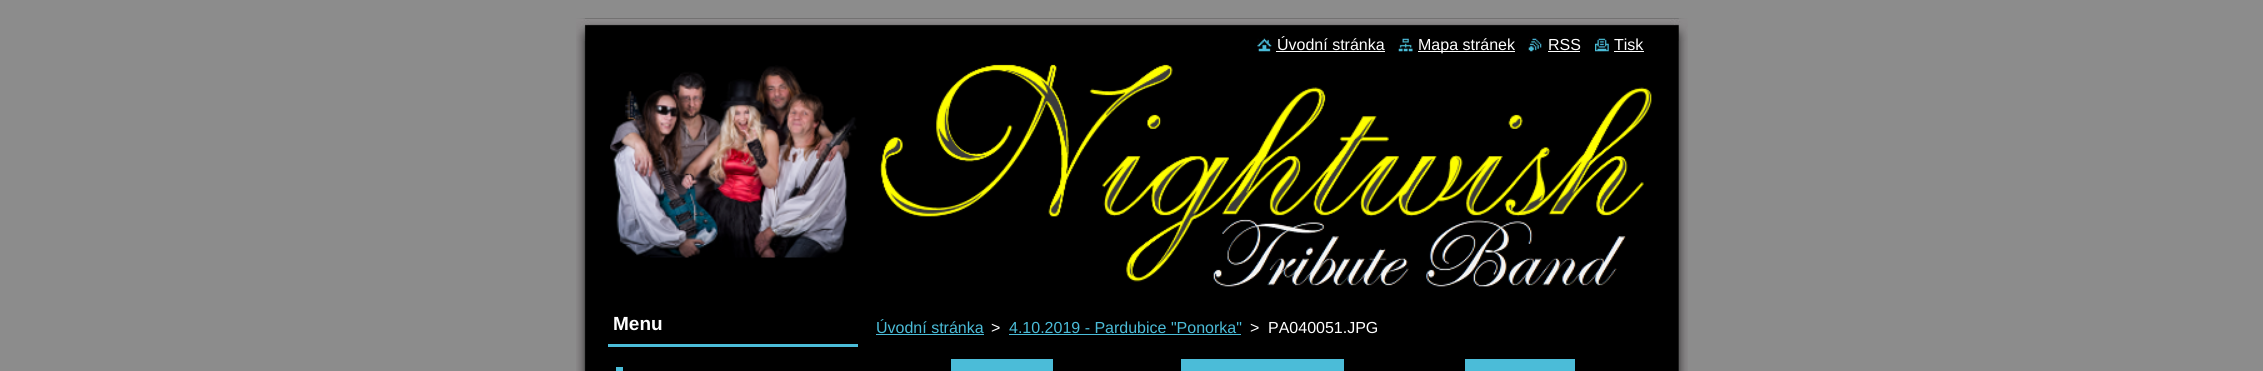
import math
import cairo


def use_color(cr, r, g, b):
  cr.set_source_rgb(r / 255, g / 255, b / 255)

def text(cr, x, y, s, family, size, color, bold=False, italic=False):
  cr.select_font_face(family, cairo.FONT_SLANT_ITALIC if italic else cairo.FONT_SLANT_NORMAL, cairo.FONT_WEIGHT_BOLD if bold else cairo.FONT_WEIGHT_NORMAL)
  cr.set_font_size(size)
  use_color(cr, *color)
  cr.move_to(x, y)
  cr.show_text(s)

def box(cr, x, y, w, h, *color):
  use_color(cr, *color)
  cr.rectangle(x, y, w, h)
  cr.fill()

def picture(cr, path, x, y, w, h):
  cr.save()
  cr.set_source_surface(cairo.ImageSurface.create_from_png(path), x, y)
  cr.rectangle(x, y, w, h)
  cr.fill()
  cr.restore()

def draw(cr):
  use_color(cr, 140, 140, 140)
  cr.paint()
  picture(cr, "img_01.png", 576, 18, 1112, 353)
  picture(cr, "img_02.png", 576, 18, 1112, 23)
  picture(cr, "img_03.png", 1257, 38, 15, 14)
  box(cr, 1276, 51, 109, 1, 255, 255, 255)
  picture(cr, "img_04.png", 1398, 38, 15, 14)
  box(cr, 1418, 51, 97, 1, 255, 255, 255)
  picture(cr, "img_05.png", 1528, 38, 14, 14)
  box(cr, 1548, 51, 32, 1, 255, 255, 255)
  picture(cr, "img_06.png", 1595, 38, 14, 14)
  box(cr, 1614, 51, 30, 1, 255, 255, 255)
  picture(cr, "img_07.png", 610, 64, 1042, 223)
  box(cr, 608, 344, 250, 3, 75, 188, 216)
  box(cr, 616, 367, 7, 4, 75, 189, 216)
  box(cr, 876, 334, 108, 1, 75, 188, 216)
  box(cr, 1009, 334, 232, 1, 75, 188, 216)
  box(cr, 951, 359, 102, 12, 75, 188, 216)
  box(cr, 1181, 359, 163, 12, 75, 188, 216)
  box(cr, 1465, 359, 110, 12, 75, 188, 216)
  text(cr, 1277, 50, "Úvodní stránka", "Liberation Sans", 16, (255, 255, 255))
  text(cr, 1418, 50, "Mapa stránek", "Liberation Sans", 16, (255, 255, 255))
  text(cr, 1548, 50, "RSS", "Liberation Sans", 16, (255, 255, 255))
  text(cr, 1614, 50, "Tisk", "Liberation Sans", 16, (255, 255, 255))
  text(cr, 613, 330, "Menu", "Liberation Sans", 19, (255, 255, 255), bold=True)
  text(cr, 876, 333, "Úvodní stránka", "Liberation Sans", 16, (75, 188, 216))
  text(cr, 991, 333, ">", "Liberation Sans", 16, (255, 255, 255))
  text(cr, 1009, 333, "4.10.2019 - Pardubice \"Ponorka\"", "Liberation Sans", 16, (75, 188, 216))
  text(cr, 1250, 333, ">", "Liberation Sans", 16, (255, 255, 255))
  text(cr, 1268, 333, "PA040051.JPG", "Liberation Sans", 16, (255, 255, 255))


surface = cairo.ImageSurface(cairo.FORMAT_RGB24, 2263, 371)
cr = cairo.Context(surface)
options = cairo.FontOptions()
options.set_hint_metrics(cairo.HINT_METRICS_OFF)
options.set_hint_style(cairo.HINT_STYLE_NONE)
cr.set_font_options(options)
cr.set_miter_limit(4)
draw(cr)
surface.write_to_png("out.png")
